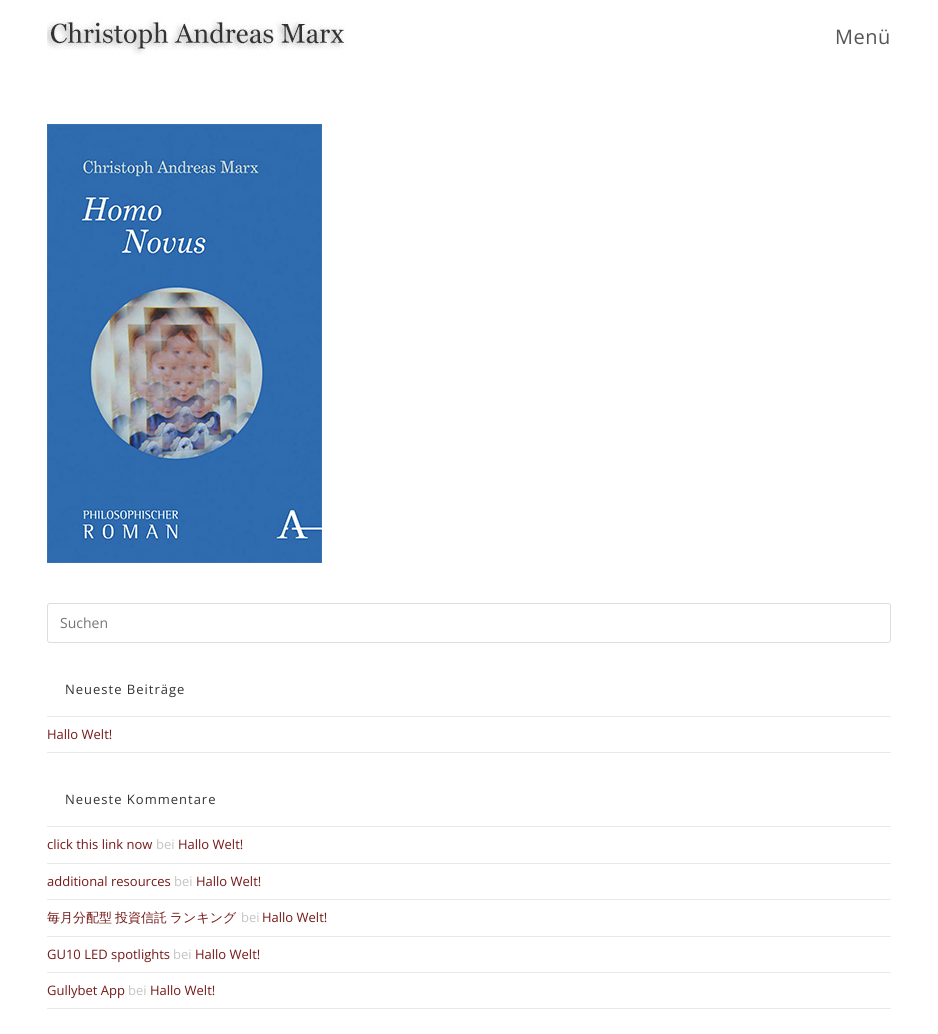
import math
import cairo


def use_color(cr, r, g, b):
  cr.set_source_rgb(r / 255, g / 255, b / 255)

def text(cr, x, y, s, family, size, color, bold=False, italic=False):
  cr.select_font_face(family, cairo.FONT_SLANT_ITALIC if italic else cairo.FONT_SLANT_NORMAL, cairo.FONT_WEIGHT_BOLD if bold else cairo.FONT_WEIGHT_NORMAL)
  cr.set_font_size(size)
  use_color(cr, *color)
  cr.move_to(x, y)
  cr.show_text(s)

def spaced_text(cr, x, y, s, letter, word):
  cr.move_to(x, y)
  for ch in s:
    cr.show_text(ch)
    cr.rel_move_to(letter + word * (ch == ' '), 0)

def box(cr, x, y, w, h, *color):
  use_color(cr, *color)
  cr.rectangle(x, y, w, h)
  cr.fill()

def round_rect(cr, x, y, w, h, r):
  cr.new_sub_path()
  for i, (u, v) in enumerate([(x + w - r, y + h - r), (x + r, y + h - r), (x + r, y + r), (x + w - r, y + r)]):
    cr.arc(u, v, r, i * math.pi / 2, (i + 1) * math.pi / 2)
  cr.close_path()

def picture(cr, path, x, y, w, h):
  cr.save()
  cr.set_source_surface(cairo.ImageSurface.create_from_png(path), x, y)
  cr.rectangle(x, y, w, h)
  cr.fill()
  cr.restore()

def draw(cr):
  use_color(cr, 255, 255, 255)
  cr.paint()
  picture(cr, "img_01.png", 47, 17, 300, 38)
  picture(cr, "img_02.png", 47, 124, 275, 439)
  round_rect(cr, 47.5, 603.5, 843, 39, 2.5)
  use_color(cr, 221, 221, 221)
  cr.set_line_width(1)
  cr.stroke()
  box(cr, 47, 716, 844, 1, 233, 233, 233)
  box(cr, 47, 752, 844, 1, 233, 233, 233)
  box(cr, 47, 826, 844, 1, 233, 233, 233)
  box(cr, 47, 863, 844, 1, 233, 233, 233)
  box(cr, 47, 899, 844, 1, 233, 233, 233)
  box(cr, 47, 936, 844, 1, 233, 233, 233)
  box(cr, 47, 972, 844, 1, 233, 233, 233)
  box(cr, 47, 1008, 844, 1, 233, 233, 233)
  cr.select_font_face("Open Sans")
  cr.set_font_size(20)
  use_color(cr, 85, 85, 85)
  spaced_text(cr, 835, 44, "Menü", 0.5, 0)
  text(cr, 60, 628, "Suchen", "Open Sans", 14, (117, 117, 117))
  cr.set_font_size(13)
  use_color(cr, 51, 51, 51)
  spaced_text(cr, 65, 694, "Neueste Beiträge", 1, 0)
  text(cr, 47, 739, "Hallo Welt!", "Open Sans", 13, (118, 25, 25))
  use_color(cr, 51, 51, 51)
  spaced_text(cr, 65, 804, "Neueste Kommentare", 1, 0)
  text(cr, 47, 849, "click this link now", "Open Sans", 13, (118, 25, 25))
  text(cr, 156, 849, "bei", "Open Sans", 13, (196, 196, 196))
  text(cr, 178, 849, "Hallo Welt!", "Open Sans", 13, (118, 25, 25))
  text(cr, 47, 886, "additional resources", "Open Sans", 13, (118, 25, 25))
  text(cr, 174, 886, "bei", "Open Sans", 13, (196, 196, 196))
  text(cr, 196, 886, "Hallo Welt!", "Open Sans", 13, (118, 25, 25))
  cr.select_font_face("WenQuanYi Zen Hei Medium")
  spaced_text(cr, 47, 922, "毎月分配型 投資信託 ランキング", 0, -1)
  text(cr, 241, 922, "bei", "Open Sans", 13, (196, 196, 196))
  text(cr, 262, 922, "Hallo Welt!", "Open Sans", 13, (118, 25, 25))
  text(cr, 47, 959, "GU10 LED spotlights", "Open Sans", 13, (118, 25, 25))
  text(cr, 173, 959, "bei", "Open Sans", 13, (196, 196, 196))
  text(cr, 195, 959, "Hallo Welt!", "Open Sans", 13, (118, 25, 25))
  text(cr, 47, 995, "Gullybet App", "Open Sans", 13, (118, 25, 25))
  text(cr, 128, 995, "bei", "Open Sans", 13, (196, 196, 196))
  text(cr, 150, 995, "Hallo Welt!", "Open Sans", 13, (118, 25, 25))


surface = cairo.ImageSurface(cairo.FORMAT_RGB24, 938, 1034)
cr = cairo.Context(surface)
options = cairo.FontOptions()
options.set_hint_metrics(cairo.HINT_METRICS_OFF)
options.set_hint_style(cairo.HINT_STYLE_NONE)
cr.set_font_options(options)
cr.set_miter_limit(4)
draw(cr)
surface.write_to_png("out.png")
